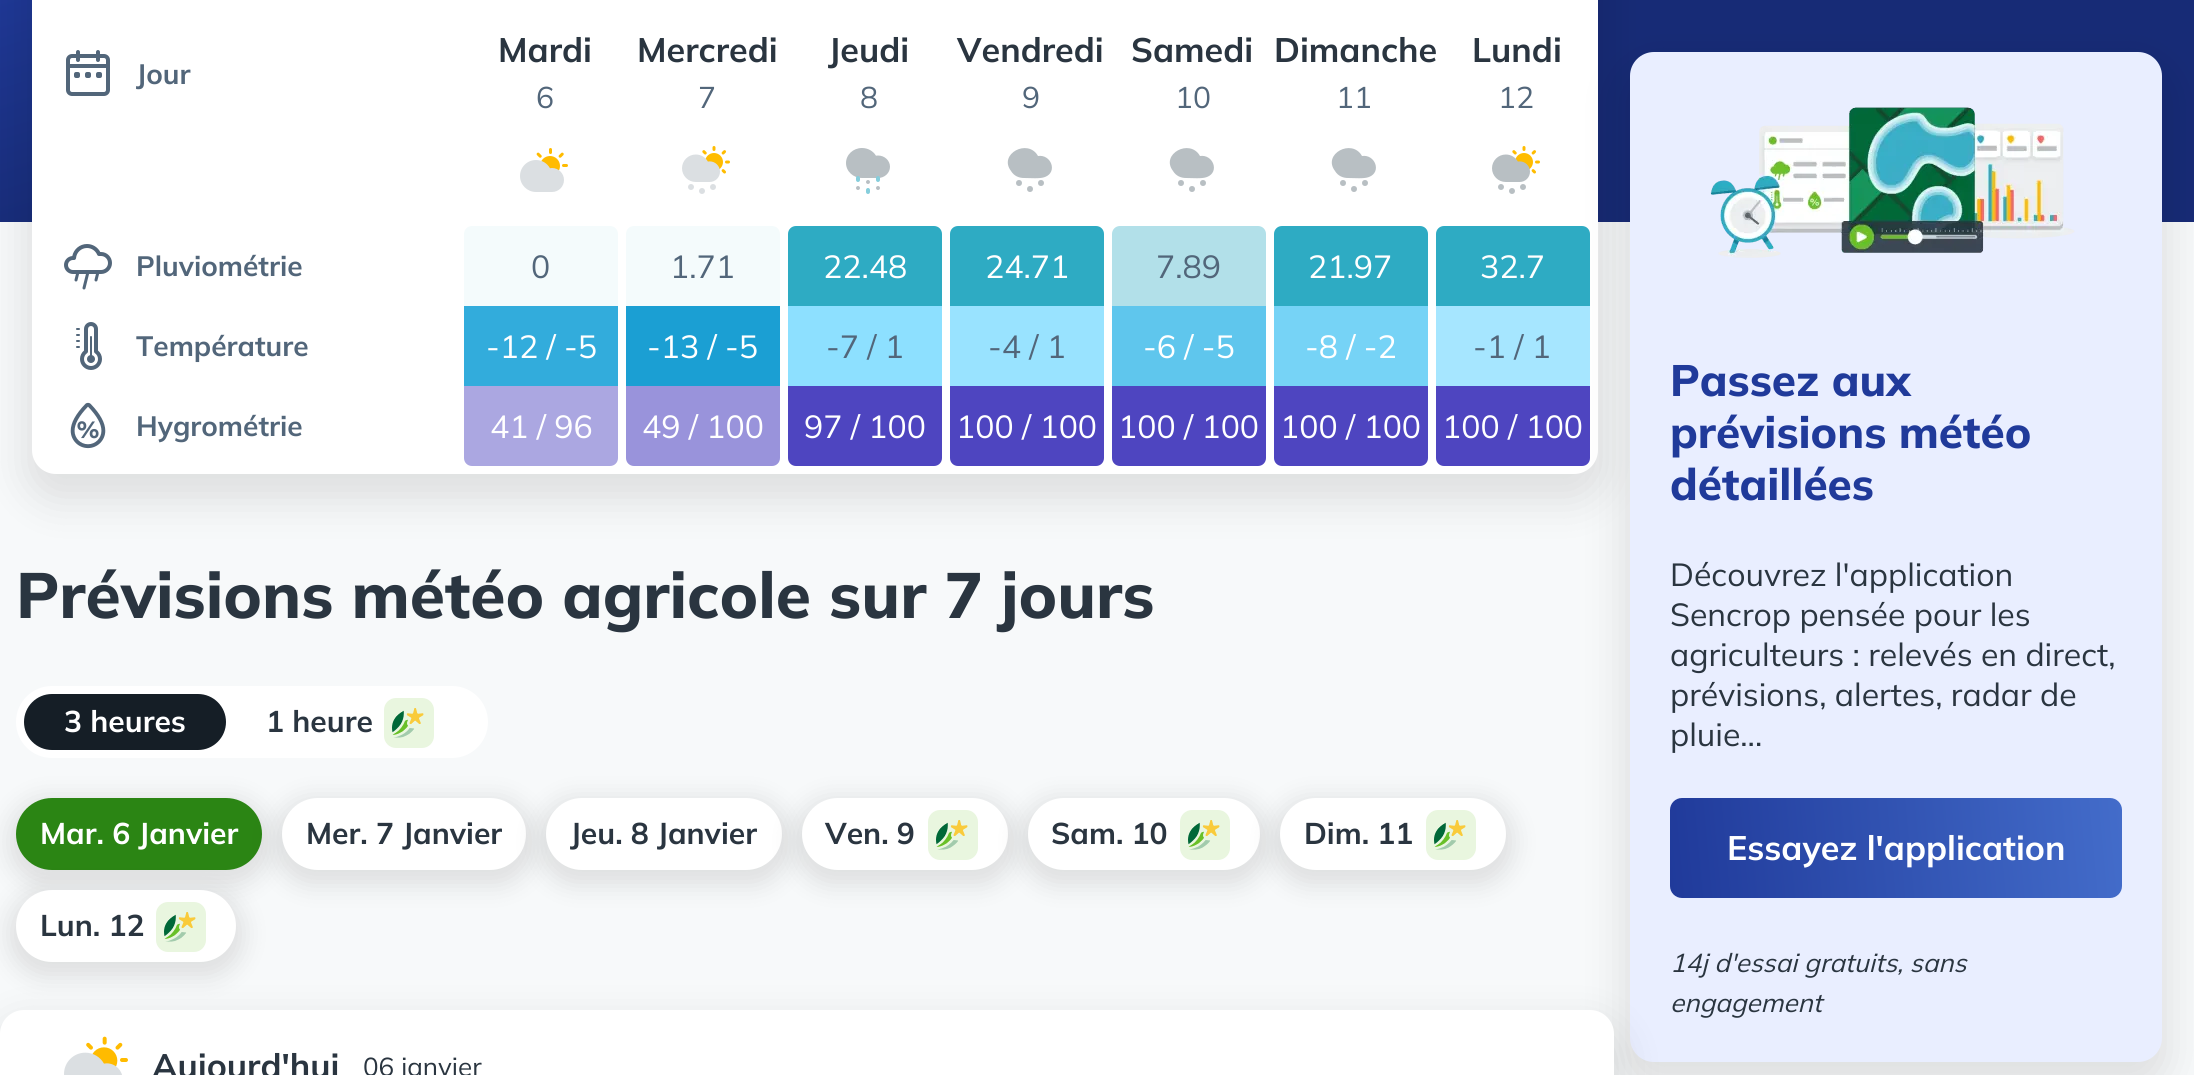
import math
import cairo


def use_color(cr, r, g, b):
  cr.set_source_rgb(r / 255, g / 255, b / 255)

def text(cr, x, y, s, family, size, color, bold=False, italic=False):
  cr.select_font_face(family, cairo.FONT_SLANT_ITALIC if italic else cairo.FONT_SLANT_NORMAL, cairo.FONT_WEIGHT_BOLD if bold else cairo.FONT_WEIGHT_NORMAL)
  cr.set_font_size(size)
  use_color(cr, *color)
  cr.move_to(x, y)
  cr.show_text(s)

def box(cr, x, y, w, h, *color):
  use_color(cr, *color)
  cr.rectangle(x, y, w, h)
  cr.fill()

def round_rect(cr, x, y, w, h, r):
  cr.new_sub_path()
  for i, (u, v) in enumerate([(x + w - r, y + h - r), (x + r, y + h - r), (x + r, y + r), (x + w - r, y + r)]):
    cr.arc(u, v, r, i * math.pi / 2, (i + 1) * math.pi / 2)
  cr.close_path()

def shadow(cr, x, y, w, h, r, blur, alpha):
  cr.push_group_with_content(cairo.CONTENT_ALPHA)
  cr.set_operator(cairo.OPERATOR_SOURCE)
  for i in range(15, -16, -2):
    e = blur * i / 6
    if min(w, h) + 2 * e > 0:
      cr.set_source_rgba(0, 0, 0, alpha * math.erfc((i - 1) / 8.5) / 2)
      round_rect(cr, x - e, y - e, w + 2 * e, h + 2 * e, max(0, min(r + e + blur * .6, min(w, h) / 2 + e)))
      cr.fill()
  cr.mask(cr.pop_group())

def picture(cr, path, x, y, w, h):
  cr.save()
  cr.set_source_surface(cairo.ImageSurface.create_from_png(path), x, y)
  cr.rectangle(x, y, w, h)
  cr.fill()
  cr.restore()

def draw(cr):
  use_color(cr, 247, 249, 250)
  cr.paint()
  gradient = cairo.LinearGradient(869, -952, 1325, 496)
  gradient.add_color_stop_rgba(0, 0.263, 0.424, 0.792, 1)
  gradient.add_color_stop_rgba(0.4, 0.125, 0.227, 0.604, 1)
  gradient.add_color_stop_rgba(0.59, 0.09, 0.169, 0.463, 1)
  cr.set_source(gradient)
  cr.rectangle(0, 0, 2194, 222)
  cr.fill()
  use_color(cr, 0, 0, 0)
  shadow(cr, 24, -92, 1582, 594, 32, 20, 0.1)
  use_color(cr, 255, 255, 255)
  round_rect(cr, 32, -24, 1566, 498, 24)
  cr.fill()
  picture(cr, "img_01.png", 66, 50, 44, 46)
  picture(cr, "img_02.png", 520, 148, 48, 44)
  picture(cr, "img_03.png", 682, 146, 48, 48)
  picture(cr, "img_04.png", 846, 148, 44, 46)
  use_color(cr, 184, 191, 195)
  cr.set_fill_rule(cairo.FILL_RULE_EVEN_ODD)
  cr.new_path()
  cr.move_to(1024, 178)
  cr.curve_to(1019, 178, 1014, 176, 1011, 171)
  cr.curve_to(998, 154, 1028, 138, 1038, 156)
  cr.curve_to(1051, 154, 1058, 172, 1045, 177)
  cr.curve_to(1040, 179, 1030, 178, 1024, 178)
  cr.close_path()
  cr.fill()
  cr.arc(1019, 183, 3, 0, 2 * math.pi)
  cr.fill()
  cr.arc(1041, 183, 3, 0, 2 * math.pi)
  cr.fill()
  cr.arc(1030, 189, 3, 0, 2 * math.pi)
  cr.fill()
  cr.new_path()
  cr.move_to(1186, 178)
  cr.curve_to(1181, 178, 1176, 176, 1173, 171)
  cr.curve_to(1160, 154, 1190, 138, 1200, 156)
  cr.curve_to(1213, 154, 1220, 172, 1207, 177)
  cr.curve_to(1202, 179, 1192, 178, 1186, 178)
  cr.close_path()
  cr.fill()
  cr.arc(1181, 183, 3, 0, 2 * math.pi)
  cr.fill()
  cr.arc(1203, 183, 3, 0, 2 * math.pi)
  cr.fill()
  cr.arc(1192, 189, 3, 0, 2 * math.pi)
  cr.fill()
  cr.new_path()
  cr.move_to(1348, 178)
  cr.curve_to(1343, 178, 1338, 176, 1335, 171)
  cr.curve_to(1322, 154, 1352, 138, 1362, 156)
  cr.curve_to(1375, 154, 1382, 172, 1369, 177)
  cr.curve_to(1364, 179, 1354, 178, 1348, 178)
  cr.close_path()
  cr.fill()
  cr.arc(1343, 183, 3, 0, 2 * math.pi)
  cr.fill()
  cr.arc(1365, 183, 3, 0, 2 * math.pi)
  cr.fill()
  cr.arc(1354, 189, 3, 0, 2 * math.pi)
  cr.fill()
  picture(cr, "img_05.png", 1492, 146, 48, 48)
  picture(cr, "img_06.png", 64, 244, 48, 46)
  use_color(cr, 244, 251, 252)
  cr.new_path()
  cr.move_to(472, 226)
  cr.line_to(610, 226)
  cr.curve_to(614.5, 226, 618, 229.5, 618, 234)
  cr.line_to(618, 306)
  cr.line_to(464, 306)
  cr.line_to(464, 234)
  cr.curve_to(464, 229.5, 467.5, 226, 472, 226)
  cr.close_path()
  cr.fill()
  cr.new_path()
  cr.move_to(634, 226)
  cr.line_to(772, 226)
  cr.curve_to(776.5, 226, 780, 229.5, 780, 234)
  cr.line_to(780, 306)
  cr.line_to(626, 306)
  cr.line_to(626, 234)
  cr.curve_to(626, 229.5, 629.5, 226, 634, 226)
  cr.close_path()
  cr.fill()
  use_color(cr, 46, 171, 195)
  cr.new_path()
  cr.move_to(796, 226)
  cr.line_to(934, 226)
  cr.curve_to(938.5, 226, 942, 229.5, 942, 234)
  cr.line_to(942, 306)
  cr.line_to(788, 306)
  cr.line_to(788, 234)
  cr.curve_to(788, 229.5, 791.5, 226, 796, 226)
  cr.close_path()
  cr.fill()
  cr.new_path()
  cr.move_to(958, 226)
  cr.line_to(1096, 226)
  cr.curve_to(1100.5, 226, 1104, 229.5, 1104, 234)
  cr.line_to(1104, 306)
  cr.line_to(950, 306)
  cr.line_to(950, 234)
  cr.curve_to(950, 229.5, 953.5, 226, 958, 226)
  cr.close_path()
  cr.fill()
  use_color(cr, 178, 224, 233)
  cr.new_path()
  cr.move_to(1120, 226)
  cr.line_to(1258, 226)
  cr.curve_to(1262.5, 226, 1266, 229.5, 1266, 234)
  cr.line_to(1266, 306)
  cr.line_to(1112, 306)
  cr.line_to(1112, 234)
  cr.curve_to(1112, 229.5, 1115.5, 226, 1120, 226)
  cr.close_path()
  cr.fill()
  use_color(cr, 46, 171, 195)
  cr.new_path()
  cr.move_to(1282, 226)
  cr.line_to(1420, 226)
  cr.curve_to(1424.5, 226, 1428, 229.5, 1428, 234)
  cr.line_to(1428, 306)
  cr.line_to(1274, 306)
  cr.line_to(1274, 234)
  cr.curve_to(1274, 229.5, 1277.5, 226, 1282, 226)
  cr.close_path()
  cr.fill()
  use_color(cr, 0, 0, 0)
  shadow(cr, 1622, 64, 548, 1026, 32, 20, 0.1)
  use_color(cr, 46, 171, 195)
  cr.new_path()
  cr.move_to(1444, 226)
  cr.line_to(1582, 226)
  cr.curve_to(1586.5, 226, 1590, 229.5, 1590, 234)
  cr.line_to(1590, 306)
  cr.line_to(1436, 306)
  cr.line_to(1436, 234)
  cr.curve_to(1436, 229.5, 1439.5, 226, 1444, 226)
  cr.close_path()
  cr.fill()
  picture(cr, "img_07.png", 76, 322, 26, 48)
  box(cr, 464, 306, 154, 80, 50, 172, 220)
  box(cr, 626, 306, 154, 80, 27, 159, 211)
  box(cr, 788, 306, 154, 80, 141, 224, 255)
  box(cr, 950, 306, 154, 80, 153, 227, 255)
  box(cr, 1112, 306, 154, 80, 95, 198, 237)
  box(cr, 1274, 306, 154, 80, 118, 211, 246)
  box(cr, 1436, 306, 154, 80, 166, 230, 255)
  picture(cr, "img_08.png", 70, 402, 36, 47)
  use_color(cr, 171, 167, 225)
  cr.new_path()
  cr.move_to(464, 386)
  cr.line_to(618, 386)
  cr.line_to(618, 458)
  cr.curve_to(618, 462.5, 614.5, 466, 610, 466)
  cr.line_to(472, 466)
  cr.curve_to(467.5, 466, 464, 462.5, 464, 458)
  cr.close_path()
  cr.fill()
  use_color(cr, 153, 147, 219)
  cr.new_path()
  cr.move_to(626, 386)
  cr.line_to(780, 386)
  cr.line_to(780, 458)
  cr.curve_to(780, 462.5, 776.5, 466, 772, 466)
  cr.line_to(634, 466)
  cr.curve_to(629.5, 466, 626, 462.5, 626, 458)
  cr.close_path()
  cr.fill()
  use_color(cr, 78, 69, 192)
  cr.new_path()
  cr.move_to(788, 386)
  cr.line_to(942, 386)
  cr.line_to(942, 458)
  cr.curve_to(942, 462.5, 938.5, 466, 934, 466)
  cr.line_to(796, 466)
  cr.curve_to(791.5, 466, 788, 462.5, 788, 458)
  cr.close_path()
  cr.fill()
  cr.new_path()
  cr.move_to(950, 386)
  cr.line_to(1104, 386)
  cr.line_to(1104, 458)
  cr.curve_to(1104, 462.5, 1100.5, 466, 1096, 466)
  cr.line_to(958, 466)
  cr.curve_to(953.5, 466, 950, 462.5, 950, 458)
  cr.close_path()
  cr.fill()
  cr.new_path()
  cr.move_to(1112, 386)
  cr.line_to(1266, 386)
  cr.line_to(1266, 458)
  cr.curve_to(1266, 462.5, 1262.5, 466, 1258, 466)
  cr.line_to(1120, 466)
  cr.curve_to(1115.5, 466, 1112, 462.5, 1112, 458)
  cr.close_path()
  cr.fill()
  cr.new_path()
  cr.move_to(1274, 386)
  cr.line_to(1428, 386)
  cr.line_to(1428, 458)
  cr.curve_to(1428, 462.5, 1424.5, 466, 1420, 466)
  cr.line_to(1282, 466)
  cr.curve_to(1277.5, 466, 1274, 462.5, 1274, 458)
  cr.close_path()
  cr.fill()
  cr.new_path()
  cr.move_to(1436, 386)
  cr.line_to(1590, 386)
  cr.line_to(1590, 458)
  cr.curve_to(1590, 462.5, 1586.5, 466, 1582, 466)
  cr.line_to(1444, 466)
  cr.curve_to(1439.5, 466, 1436, 462.5, 1436, 458)
  cr.close_path()
  cr.fill()
  use_color(cr, 255, 255, 255)
  round_rect(cr, 16, 686, 472, 72, 36)
  cr.fill()
  use_color(cr, 21, 30, 38)
  round_rect(cr, 24, 694, 202, 56, 28)
  cr.fill()
  use_color(cr, 233, 246, 223)
  round_rect(cr, 384, 698, 50, 50, 12)
  cr.fill()
  picture(cr, "img_09.png", 392, 708, 32, 30)
  use_color(cr, 0, 0, 0)
  shadow(cr, 8, 798, 262, 88, 44, 12, 0.1)
  use_color(cr, 43, 133, 20)
  round_rect(cr, 16, 798, 246, 72, 36)
  cr.fill()
  use_color(cr, 0, 0, 0)
  shadow(cr, 274, 798, 260, 88, 44, 12, 0.1)
  use_color(cr, 255, 255, 255)
  round_rect(cr, 282, 798, 244, 72, 36)
  cr.fill()
  use_color(cr, 0, 0, 0)
  shadow(cr, 538, 798, 252, 88, 44, 12, 0.1)
  use_color(cr, 255, 255, 255)
  round_rect(cr, 546, 798, 236, 72, 36)
  cr.fill()
  use_color(cr, 0, 0, 0)
  shadow(cr, 794, 798, 222, 88, 44, 12, 0.1)
  use_color(cr, 255, 255, 255)
  round_rect(cr, 802, 798, 206, 72, 36)
  cr.fill()
  use_color(cr, 233, 246, 223)
  round_rect(cr, 928, 810, 50, 50, 12)
  cr.fill()
  picture(cr, "img_10.png", 936, 820, 32, 30)
  use_color(cr, 0, 0, 0)
  shadow(cr, 1020, 798, 248, 88, 44, 12, 0.1)
  use_color(cr, 255, 255, 255)
  round_rect(cr, 1028, 798, 232, 72, 36)
  cr.fill()
  use_color(cr, 233, 246, 223)
  round_rect(cr, 1180, 810, 50, 50, 12)
  cr.fill()
  picture(cr, "img_10.png", 1188, 820, 32, 30)
  use_color(cr, 0, 0, 0)
  shadow(cr, 1272, 798, 242, 88, 44, 12, 0.1)
  use_color(cr, 255, 255, 255)
  round_rect(cr, 1280, 798, 226, 72, 36)
  cr.fill()
  use_color(cr, 233, 246, 223)
  round_rect(cr, 1426, 810, 50, 50, 12)
  cr.fill()
  picture(cr, "img_10.png", 1434, 820, 32, 30)
  use_color(cr, 0, 0, 0)
  shadow(cr, 8, 890, 236, 88, 44, 12, 0.1)
  use_color(cr, 255, 255, 255)
  round_rect(cr, 16, 890, 220, 72, 36)
  cr.fill()
  use_color(cr, 233, 246, 223)
  round_rect(cr, 156, 902, 50, 50, 12)
  cr.fill()
  picture(cr, "img_09.png", 164, 912, 32, 30)
  use_color(cr, 233, 238, 255)
  round_rect(cr, 1630, 52, 532, 1010, 24)
  cr.fill()
  use_color(cr, 0, 0, 0)
  shadow(cr, -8, 1022, 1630, 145, 32, 20, 0.1)
  use_color(cr, 255, 255, 255)
  round_rect(cr, 0, 1010, 1614, 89, 24)
  cr.fill()
  picture(cr, "img_11.png", 64, 1036, 64, 39)
  picture(cr, "img_12.png", 1710, 107, 365, 151)
  gradient = cairo.LinearGradient(1667, 869, 2125, 827)
  gradient.add_color_stop_rgba(0, 0.125, 0.227, 0.604, 1)
  gradient.add_color_stop_rgba(1, 0.263, 0.424, 0.792, 1)
  cr.set_source(gradient)
  round_rect(cr, 1670, 798, 452, 100, 12)
  cr.fill()
  text(cr, 136, 84, "Jour", "Mulish", 28, (82, 102, 122), bold=True)
  text(cr, 498, 62, "Mardi", "Mulish", 34, (42, 53, 64), bold=True)
  text(cr, 536, 108, "6", "Mulish", 30, (82, 102, 122))
  text(cr, 637, 62, "Mercredi", "Mulish", 34, (42, 53, 64), bold=True)
  text(cr, 698, 108, "7", "Mulish", 30, (82, 102, 122))
  text(cr, 828, 62, "Jeudi", "Mulish", 34, (42, 53, 64), bold=True)
  text(cr, 860, 108, "8", "Mulish", 30, (82, 102, 122))
  text(cr, 957, 62, "Vendredi", "Mulish", 34, (42, 53, 64), bold=True)
  text(cr, 1022, 108, "9", "Mulish", 30, (82, 102, 122))
  text(cr, 1131, 62, "Samedi", "Mulish", 34, (42, 53, 64), bold=True)
  text(cr, 1175, 108, "10", "Mulish", 30, (82, 102, 122))
  text(cr, 1274, 62, "Dimanche", "Mulish", 34, (42, 53, 64), bold=True)
  text(cr, 1336, 108, "11", "Mulish", 30, (82, 102, 122))
  text(cr, 1472, 62, "Lundi", "Mulish", 34, (42, 53, 64), bold=True)
  text(cr, 1498, 108, "12", "Mulish", 30, (82, 102, 122))
  text(cr, 136, 276, "Pluviométrie", "Mulish", 28, (82, 102, 122), bold=True)
  text(cr, 531, 278, "0", "Mulish", 32, (82, 102, 122))
  text(cr, 670, 278, "1.71", "Mulish", 32, (82, 102, 122))
  text(cr, 823, 278, "22.48", "Mulish", 32, (255, 255, 255))
  text(cr, 985, 278, "24.71", "Mulish", 32, (255, 255, 255))
  text(cr, 1156, 278, "7.89", "Mulish", 32, (82, 102, 122))
  text(cr, 1308, 278, "21.97", "Mulish", 32, (255, 255, 255))
  text(cr, 1480, 278, "32.7", "Mulish", 32, (255, 255, 255))
  text(cr, 136, 356, "Température", "Mulish", 28, (82, 102, 122), bold=True)
  text(cr, 486, 358, "-12 / -5", "Mulish", 32, (255, 255, 255))
  text(cr, 647, 358, "-13 / -5", "Mulish", 32, (255, 255, 255))
  text(cr, 826, 358, "-7 / 1", "Mulish", 32, (82, 102, 122))
  text(cr, 988, 358, "-4 / 1", "Mulish", 32, (82, 102, 122))
  text(cr, 1143, 358, "-6 / -5", "Mulish", 32, (255, 255, 255))
  text(cr, 1305, 358, "-8 / -2", "Mulish", 32, (255, 255, 255))
  text(cr, 1473, 358, "-1 / 1", "Mulish", 32, (82, 102, 122))
  text(cr, 136, 436, "Hygrométrie", "Mulish", 28, (82, 102, 122), bold=True)
  text(cr, 490, 438, "41 / 96", "Mulish", 32, (255, 255, 255))
  text(cr, 642, 438, "49 / 100", "Mulish", 32, (255, 255, 255))
  text(cr, 804, 438, "97 / 100", "Mulish", 32, (255, 255, 255))
  text(cr, 956, 438, "100 / 100", "Mulish", 32, (255, 255, 255))
  text(cr, 1118, 438, "100 / 100", "Mulish", 32, (255, 255, 255))
  text(cr, 1280, 438, "100 / 100", "Mulish", 32, (255, 255, 255))
  text(cr, 1442, 438, "100 / 100", "Mulish", 32, (255, 255, 255))
  text(cr, 16, 618, "Prévisions météo agricole sur 7 jours", "Mulish ExtraBold", 64, (42, 53, 64))
  text(cr, 64, 732, "3 heures", "Mulish", 30, (255, 255, 255), bold=True)
  text(cr, 266, 732, "1 heure", "Mulish", 30, (42, 53, 64), bold=True)
  text(cr, 40, 844, "Mar. 6 Janvier", "Mulish", 30, (255, 255, 255), bold=True)
  text(cr, 306, 844, "Mer. 7 Janvier", "Mulish", 30, (42, 53, 64), bold=True)
  text(cr, 570, 844, "Jeu. 8 Janvier", "Mulish", 30, (42, 53, 64), bold=True)
  text(cr, 825, 844, "Ven. 9", "Mulish", 30, (42, 53, 64), bold=True)
  text(cr, 1051, 844, "Sam. 10", "Mulish", 30, (42, 53, 64), bold=True)
  text(cr, 1304, 844, "Dim. 11", "Mulish", 30, (42, 53, 64), bold=True)
  text(cr, 40, 936, "Lun. 12", "Mulish", 30, (42, 53, 64), bold=True)
  text(cr, 152, 1078, "Aujourd'hui", "Mulish", 34, (42, 53, 64), bold=True)
  text(cr, 363, 1076, "06 janvier", "Mulish", 26, (42, 53, 64))
  text(cr, 1670, 396, "Passez aux", "Mulish ExtraBold", 44, (32, 58, 154))
  text(cr, 1670, 448, "prévisions météo", "Mulish ExtraBold", 44, (32, 58, 154))
  text(cr, 1670, 500, "détaillées", "Mulish ExtraBold", 44, (32, 58, 154))
  text(cr, 1670, 586, "Découvrez l'application", "Mulish", 32, (42, 53, 64))
  text(cr, 1670, 626, "Sencrop pensée pour les", "Mulish", 32, (42, 53, 64))
  text(cr, 1670, 666, "agriculteurs : relevés en direct,", "Mulish", 32, (42, 53, 64))
  text(cr, 1670, 706, "prévisions, alertes, radar de", "Mulish", 32, (42, 53, 64))
  text(cr, 1670, 746, "pluie...", "Mulish", 32, (42, 53, 64))
  text(cr, 1727, 860, "Essayez l'application", "Mulish", 34, (255, 255, 255), bold=True)
  text(cr, 1670, 972, "14j d'essai gratuits, sans", "Mulish", 26, (42, 53, 64), italic=True)
  text(cr, 1670, 1012, "engagement", "Mulish", 26, (42, 53, 64), italic=True)


surface = cairo.ImageSurface(cairo.FORMAT_RGB24, 2194, 1075)
cr = cairo.Context(surface)
options = cairo.FontOptions()
options.set_hint_metrics(cairo.HINT_METRICS_OFF)
options.set_hint_style(cairo.HINT_STYLE_NONE)
cr.set_font_options(options)
cr.set_miter_limit(4)
draw(cr)
surface.write_to_png("out.png")
